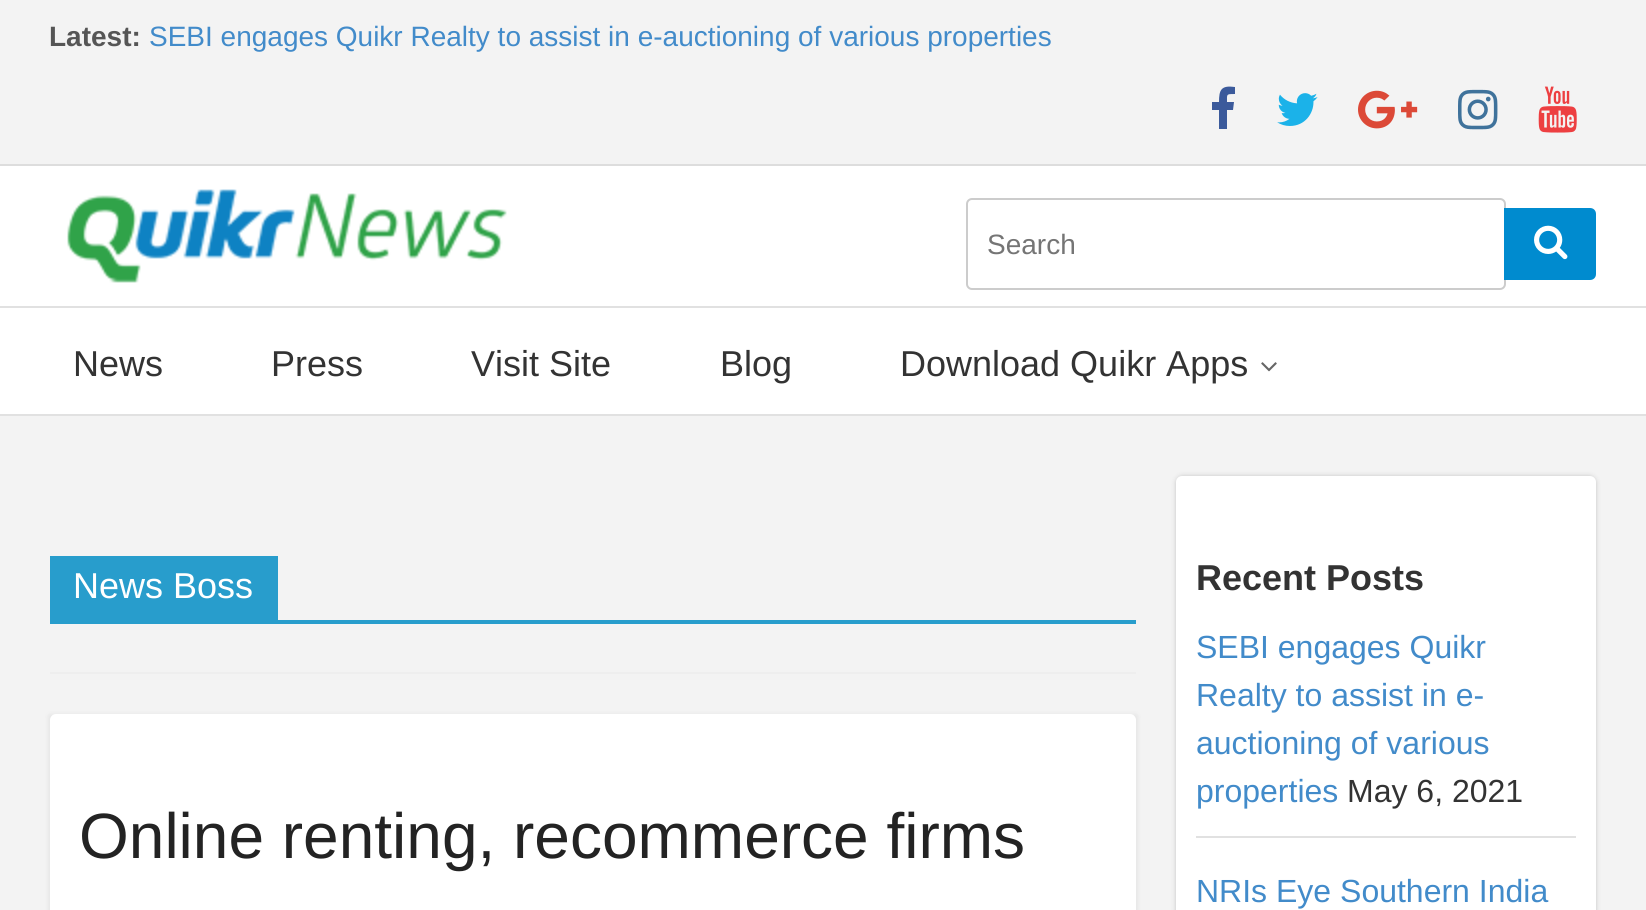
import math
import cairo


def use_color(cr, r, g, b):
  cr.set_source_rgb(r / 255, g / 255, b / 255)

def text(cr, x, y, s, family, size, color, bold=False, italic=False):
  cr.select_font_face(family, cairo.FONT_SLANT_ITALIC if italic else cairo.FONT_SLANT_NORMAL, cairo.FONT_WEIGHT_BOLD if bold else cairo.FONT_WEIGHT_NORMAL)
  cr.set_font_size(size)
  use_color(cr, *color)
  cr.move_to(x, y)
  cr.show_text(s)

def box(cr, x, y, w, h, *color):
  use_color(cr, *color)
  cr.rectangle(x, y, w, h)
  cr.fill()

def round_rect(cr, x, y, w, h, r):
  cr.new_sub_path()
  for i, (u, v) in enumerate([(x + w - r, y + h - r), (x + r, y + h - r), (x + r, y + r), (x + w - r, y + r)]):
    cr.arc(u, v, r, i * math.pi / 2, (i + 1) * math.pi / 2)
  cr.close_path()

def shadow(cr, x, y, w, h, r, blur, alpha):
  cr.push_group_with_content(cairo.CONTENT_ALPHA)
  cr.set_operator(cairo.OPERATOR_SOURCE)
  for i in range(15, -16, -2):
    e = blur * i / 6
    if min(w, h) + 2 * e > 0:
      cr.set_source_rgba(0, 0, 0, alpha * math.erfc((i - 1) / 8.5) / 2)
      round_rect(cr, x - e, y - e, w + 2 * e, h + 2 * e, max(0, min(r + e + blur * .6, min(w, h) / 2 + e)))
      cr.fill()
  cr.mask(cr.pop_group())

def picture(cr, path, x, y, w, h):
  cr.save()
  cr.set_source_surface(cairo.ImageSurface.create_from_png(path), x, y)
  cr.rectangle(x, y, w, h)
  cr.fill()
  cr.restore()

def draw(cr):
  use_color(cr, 255, 255, 255)
  cr.paint()
  box(cr, 0, 0, 1646, 164, 243, 243, 243)
  box(cr, 0, 164, 1646, 2, 221, 221, 221)
  use_color(cr, 59, 90, 155)
  cr.new_path()
  cr.move_to(1235, 87)
  cr.curve_to(1221, 85, 1219, 90, 1219, 102)
  cr.line_to(1212, 102)
  cr.line_to(1212, 110)
  cr.line_to(1219, 110)
  cr.line_to(1219, 129)
  cr.line_to(1227, 129)
  cr.line_to(1227, 110)
  cr.line_to(1233, 110)
  cr.line_to(1234, 102)
  cr.line_to(1227, 102)
  cr.curve_to(1227, 94, 1226, 94, 1235, 94)
  cr.close_path()
  cr.fill()
  picture(cr, "img_01.png", 1277, 93, 41, 33)
  picture(cr, "img_02.png", 1358, 90, 60, 39)
  picture(cr, "img_03.png", 1458, 89, 40, 41)
  picture(cr, "img_04.png", 1538, 86, 39, 47)
  picture(cr, "img_05.png", 67, 189, 440, 94)
  round_rect(cr, 967, 199, 538, 90, 5)
  use_color(cr, 204, 204, 204)
  cr.stroke()
  use_color(cr, 0, 139, 207)
  cr.new_path()
  cr.move_to(1504, 208)
  cr.line_to(1590, 208)
  cr.curve_to(1593.5, 208, 1596, 210.5, 1596, 214)
  cr.line_to(1596, 274)
  cr.curve_to(1596, 277.5, 1593.5, 280, 1590, 280)
  cr.line_to(1504, 280)
  cr.close_path()
  cr.fill()
  picture(cr, "img_06.png", 1534, 225, 34, 35)
  box(cr, 0, 306, 1646, 2, 225, 225, 225)
  box(cr, 0, 414, 1646, 2, 225, 225, 225)
  picture(cr, "img_07.png", 1261, 362, 16, 10)
  box(cr, 0, 416, 1646, 494, 243, 243, 243)
  box(cr, 50, 672, 1086, 2, 238, 238, 238)
  box(cr, 50, 620, 1086, 4, 40, 157, 204)
  box(cr, 50, 556, 228, 64, 40, 157, 204)
  use_color(cr, 0, 0, 0)
  shadow(cr, 50, 716, 1086, 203, 0, 3, 0.1)
  use_color(cr, 255, 255, 255)
  round_rect(cr, 50, 714, 1086, 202, 6)
  cr.fill()
  use_color(cr, 149, 149, 149)
  shadow(cr, 1178, 478, 416, 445, 4, 3, 1)
  use_color(cr, 255, 255, 255)
  round_rect(cr, 1176, 476, 420, 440, 6)
  cr.fill()
  box(cr, 1196, 836, 380, 2, 225, 225, 225)
  text(cr, 49, 46, "Latest:", "Liberation Sans", 28, (85, 85, 85), bold=True)
  text(cr, 149, 46, "SEBI engages Quikr Realty to assist in e-auctioning of various properties", "Liberation Sans", 28, (66, 139, 202))
  text(cr, 987, 254, "Search", "Liberation Sans", 28, (117, 117, 117))
  text(cr, 73, 376, "News", "Liberation Sans", 36, (51, 51, 51))
  text(cr, 271, 376, "Press", "Liberation Sans", 36, (51, 51, 51))
  text(cr, 471, 376, "Visit Site", "Liberation Sans", 36, (51, 51, 51))
  text(cr, 720, 376, "Blog", "Liberation Sans", 36, (51, 51, 51))
  text(cr, 900, 376, "Download Quikr Apps", "Liberation Sans", 36, (51, 51, 51))
  text(cr, 73, 598, "News Boss", "Liberation Sans", 36, (255, 255, 255))
  text(cr, 79, 858, "Online renting, recommerce firms", "Liberation Sans", 64, (35, 35, 35))
  text(cr, 1196, 590, "Recent Posts", "Liberation Sans", 36, (51, 51, 51), bold=True)
  text(cr, 1196, 658, "SEBI engages Quikr", "Liberation Sans", 32, (66, 139, 202))
  text(cr, 1196, 706, "Realty to assist in e-", "Liberation Sans", 32, (66, 139, 202))
  text(cr, 1196, 754, "auctioning of various", "Liberation Sans", 32, (66, 139, 202))
  text(cr, 1196, 802, "properties", "Liberation Sans", 32, (66, 139, 202))
  text(cr, 1347, 802, "May 6, 2021", "Liberation Sans", 32, (51, 51, 51))
  text(cr, 1196, 902, "NRIs Eye Southern India", "Liberation Sans", 32, (66, 139, 202))


surface = cairo.ImageSurface(cairo.FORMAT_RGB24, 1646, 910)
cr = cairo.Context(surface)
options = cairo.FontOptions()
options.set_hint_metrics(cairo.HINT_METRICS_OFF)
options.set_hint_style(cairo.HINT_STYLE_NONE)
cr.set_font_options(options)
cr.set_miter_limit(4)
draw(cr)
surface.write_to_png("out.png")
